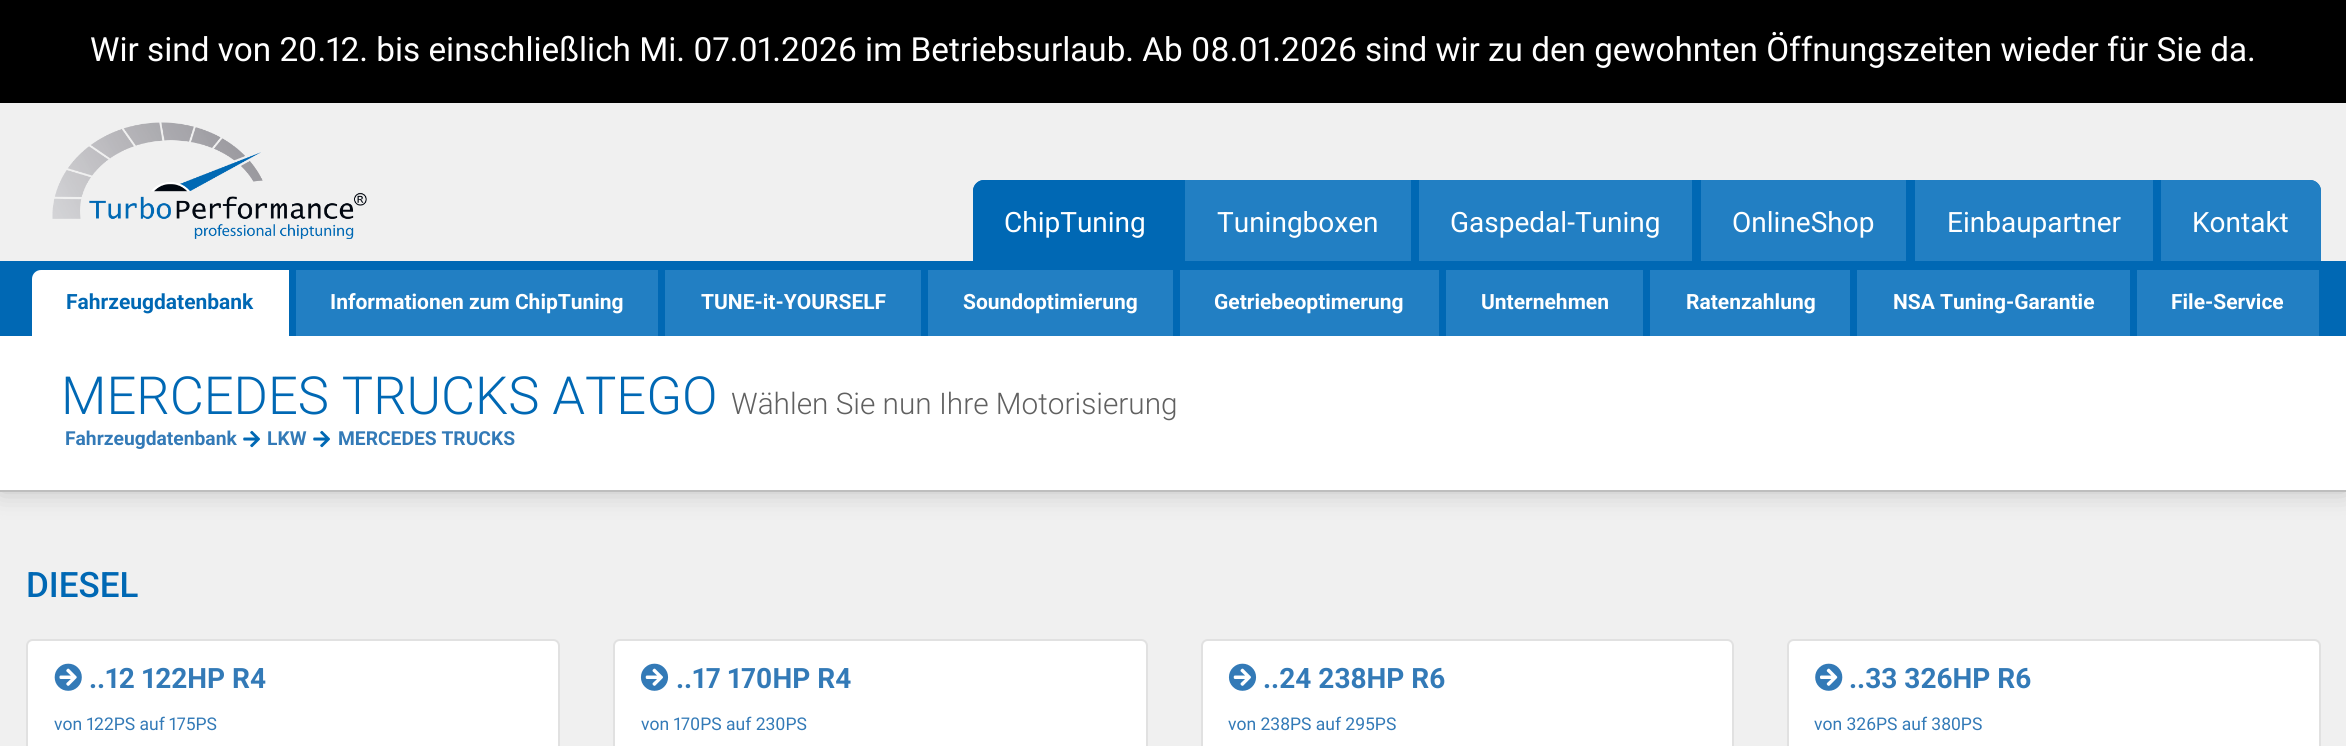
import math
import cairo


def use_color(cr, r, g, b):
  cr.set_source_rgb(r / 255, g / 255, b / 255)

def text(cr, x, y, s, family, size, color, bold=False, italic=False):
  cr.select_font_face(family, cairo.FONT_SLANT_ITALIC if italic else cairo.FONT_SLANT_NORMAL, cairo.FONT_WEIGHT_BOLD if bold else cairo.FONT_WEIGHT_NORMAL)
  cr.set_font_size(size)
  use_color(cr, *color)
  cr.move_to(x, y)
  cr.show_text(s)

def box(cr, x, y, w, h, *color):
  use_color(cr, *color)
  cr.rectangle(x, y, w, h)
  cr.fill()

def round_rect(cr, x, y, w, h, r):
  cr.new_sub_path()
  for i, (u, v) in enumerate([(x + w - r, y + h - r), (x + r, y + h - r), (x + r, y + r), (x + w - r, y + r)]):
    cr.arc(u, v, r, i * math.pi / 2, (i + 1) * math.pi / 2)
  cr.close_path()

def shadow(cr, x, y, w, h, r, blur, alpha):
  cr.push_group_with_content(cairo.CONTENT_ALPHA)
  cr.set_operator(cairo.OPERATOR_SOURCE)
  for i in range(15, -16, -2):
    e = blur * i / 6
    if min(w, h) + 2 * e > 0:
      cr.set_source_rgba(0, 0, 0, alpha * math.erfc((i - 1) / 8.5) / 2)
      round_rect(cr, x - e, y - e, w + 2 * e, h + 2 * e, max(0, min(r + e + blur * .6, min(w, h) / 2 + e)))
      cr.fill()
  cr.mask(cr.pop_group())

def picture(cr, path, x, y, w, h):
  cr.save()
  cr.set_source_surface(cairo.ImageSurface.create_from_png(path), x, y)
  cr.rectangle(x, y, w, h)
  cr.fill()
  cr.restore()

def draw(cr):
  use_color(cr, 240, 240, 240)
  cr.paint()
  box(cr, 0, 0, 2346, 103, 0, 0, 0)
  picture(cr, "img_01.png", 52, 122, 315, 117)
  use_color(cr, 0, 104, 180)
  cr.new_path()
  cr.move_to(984, 180)
  cr.line_to(2310, 180)
  cr.curve_to(2316, 180, 2321, 185, 2321, 191)
  cr.line_to(2321, 263)
  cr.line_to(973, 263)
  cr.line_to(973, 191)
  cr.curve_to(973, 185, 978, 180, 984, 180)
  cr.close_path()
  cr.fill()
  cr.new_path()
  cr.move_to(984, 180)
  cr.line_to(1178, 180)
  cr.line_to(1178, 261)
  cr.line_to(973, 261)
  cr.line_to(973, 191)
  cr.curve_to(973, 185, 978, 180, 984, 180)
  cr.close_path()
  cr.fill()
  box(cr, 1185, 180, 226, 81, 34, 127, 195)
  box(cr, 1419, 180, 273, 81, 34, 127, 195)
  box(cr, 1701, 180, 205, 81, 34, 127, 195)
  box(cr, 1915, 180, 238, 81, 34, 127, 195)
  cr.new_path()
  cr.move_to(2161, 180)
  cr.line_to(2310, 180)
  cr.curve_to(2316, 180, 2321, 185, 2321, 191)
  cr.line_to(2321, 261)
  cr.line_to(2161, 261)
  cr.close_path()
  cr.fill()
  use_color(cr, 0, 0, 0)
  shadow(cr, 0, 336, 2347, 156, 0, 13, 0.2)
  box(cr, 0, 261, 2346, 75, 0, 104, 180)
  use_color(cr, 255, 255, 255)
  cr.new_path()
  cr.move_to(41, 270)
  cr.line_to(289, 270)
  cr.line_to(289, 336)
  cr.line_to(32, 336)
  cr.line_to(32, 279)
  cr.curve_to(32, 274, 36, 270, 41, 270)
  cr.close_path()
  cr.fill()
  box(cr, 296, 270, 362, 66, 34, 127, 195)
  box(cr, 665, 270, 256, 66, 34, 127, 195)
  box(cr, 928, 270, 245, 66, 34, 127, 195)
  box(cr, 1180, 270, 259, 66, 34, 127, 195)
  box(cr, 1446, 270, 197, 66, 34, 127, 195)
  box(cr, 1650, 270, 200, 66, 34, 127, 195)
  box(cr, 1857, 270, 273, 66, 34, 127, 195)
  box(cr, 2137, 270, 182, 66, 34, 127, 195)
  box(cr, 0, 336, 2346, 154, 255, 255, 255)
  box(cr, 0, 490, 2346, 2, 190, 190, 190)
  picture(cr, "img_02.png", 243, 430, 17, 18)
  picture(cr, "img_02.png", 313, 430, 17, 18)
  use_color(cr, 255, 255, 255)
  cr.new_path()
  cr.move_to(33, 639)
  cr.line_to(553, 639)
  cr.curve_to(557, 639, 560, 642, 560, 646)
  cr.line_to(560, 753)
  cr.line_to(26, 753)
  cr.line_to(26, 646)
  cr.curve_to(26, 642, 29, 639, 33, 639)
  cr.close_path()
  cr.fill()
  cr.new_path()
  cr.move_to(33, 640)
  cr.line_to(553, 640)
  cr.curve_to(556.5, 640, 559, 642.5, 559, 646)
  cr.line_to(559, 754)
  cr.line_to(27, 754)
  cr.line_to(27, 646)
  cr.curve_to(27, 642.5, 29.5, 640, 33, 640)
  cr.close_path()
  cr.set_source_rgba(0, 0, 0, 0.12)
  cr.stroke()
  picture(cr, "img_03.png", 54, 663, 28, 28)
  use_color(cr, 255, 255, 255)
  cr.new_path()
  cr.move_to(620, 639)
  cr.line_to(1141, 639)
  cr.curve_to(1145, 639, 1148, 642, 1148, 646)
  cr.line_to(1148, 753)
  cr.line_to(613, 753)
  cr.line_to(613, 646)
  cr.curve_to(613, 642, 616, 639, 620, 639)
  cr.close_path()
  cr.fill()
  cr.new_path()
  cr.move_to(620, 640)
  cr.line_to(1141, 640)
  cr.curve_to(1144.5, 640, 1147, 642.5, 1147, 646)
  cr.line_to(1147, 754)
  cr.line_to(614, 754)
  cr.line_to(614, 646)
  cr.curve_to(614, 642.5, 616.5, 640, 620, 640)
  cr.close_path()
  cr.set_source_rgba(0, 0, 0, 0.12)
  cr.stroke()
  picture(cr, "img_04.png", 640, 663, 29, 28)
  use_color(cr, 255, 255, 255)
  cr.new_path()
  cr.move_to(1208, 639)
  cr.line_to(1727, 639)
  cr.curve_to(1731, 639, 1734, 642, 1734, 646)
  cr.line_to(1734, 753)
  cr.line_to(1201, 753)
  cr.line_to(1201, 646)
  cr.curve_to(1201, 642, 1204, 639, 1208, 639)
  cr.close_path()
  cr.fill()
  cr.new_path()
  cr.move_to(1208, 640)
  cr.line_to(1727, 640)
  cr.curve_to(1730.5, 640, 1733, 642.5, 1733, 646)
  cr.line_to(1733, 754)
  cr.line_to(1202, 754)
  cr.line_to(1202, 646)
  cr.curve_to(1202, 642.5, 1204.5, 640, 1208, 640)
  cr.close_path()
  cr.set_source_rgba(0, 0, 0, 0.12)
  cr.stroke()
  picture(cr, "img_04.png", 1228, 663, 29, 28)
  use_color(cr, 255, 255, 255)
  cr.new_path()
  cr.move_to(1794, 639)
  cr.line_to(2314, 639)
  cr.curve_to(2318, 639, 2321, 642, 2321, 646)
  cr.line_to(2321, 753)
  cr.line_to(1787, 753)
  cr.line_to(1787, 646)
  cr.curve_to(1787, 642, 1790, 639, 1794, 639)
  cr.close_path()
  cr.fill()
  cr.new_path()
  cr.move_to(1794, 640)
  cr.line_to(2314, 640)
  cr.curve_to(2317.5, 640, 2320, 642.5, 2320, 646)
  cr.line_to(2320, 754)
  cr.line_to(1788, 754)
  cr.line_to(1788, 646)
  cr.curve_to(1788, 642.5, 1790.5, 640, 1794, 640)
  cr.close_path()
  cr.set_source_rgba(0, 0, 0, 0.12)
  cr.stroke()
  picture(cr, "img_05.png", 1815, 663, 28, 28)
  text(cr, 90, 61, "Wir sind von 20.12. bis einschließlich Mi. 07.01.2026 im Betriebsurlaub. Ab 08.01.2026 sind wir zu den gewohnten Öffnungszeiten wieder für Sie da.", "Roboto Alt", 33.25, (255, 255, 255))
  text(cr, 1004, 232, "ChipTuning", "Roboto", 28, (255, 255, 255))
  text(cr, 1217, 232, "Tuningboxen", "Roboto", 28, (255, 255, 255))
  text(cr, 1450, 232, "Gaspedal-Tuning", "Roboto", 28, (255, 255, 255))
  text(cr, 1732, 232, "OnlineShop", "Roboto", 28, (255, 255, 255))
  text(cr, 1947, 232, "Einbaupartner", "Roboto", 28, (255, 255, 255))
  text(cr, 2192, 232, "Kontakt", "Roboto", 28, (255, 255, 255))
  text(cr, 66, 309, "Fahrzeugdatenbank", "Roboto", 21, (0, 104, 180), bold=True)
  text(cr, 330, 309, "Informationen zum ChipTuning", "Roboto", 21, (255, 255, 255), bold=True)
  text(cr, 701, 309, "TUNE-it-YOURSELF", "Roboto", 21, (255, 255, 255), bold=True)
  text(cr, 963, 309, "Soundoptimierung", "Roboto", 21, (255, 255, 255), bold=True)
  text(cr, 1214, 309, "Getriebeoptimerung", "Roboto", 21, (255, 255, 255), bold=True)
  text(cr, 1481, 309, "Unternehmen", "Roboto", 21, (255, 255, 255), bold=True)
  text(cr, 1686, 309, "Ratenzahlung", "Roboto", 21, (255, 255, 255), bold=True)
  text(cr, 1893, 309, "NSA Tuning-Garantie", "Roboto", 21, (255, 255, 255), bold=True)
  text(cr, 2171, 309, "File-Service", "Roboto", 21, (255, 255, 255), bold=True)
  text(cr, 61, 414, "MERCEDES TRUCKS ATEGO", "Roboto Light", 52.5, (0, 104, 180))
  text(cr, 731, 414, "Wählen Sie nun Ihre Motorisierung", "Roboto Light", 29.75, (96, 96, 96))
  text(cr, 65, 445, "Fahrzeugdatenbank", "Roboto", 19.25, (51, 122, 183), bold=True)
  text(cr, 267, 445, "LKW", "Roboto", 19.25, (51, 122, 183), bold=True)
  text(cr, 338, 445, "MERCEDES TRUCKS", "Roboto", 19.25, (51, 122, 183), bold=True)
  text(cr, 26, 597, "DIESEL", "Roboto Medium", 35, (0, 104, 180))
  text(cr, 89, 688, "..12 122HP R4", "Roboto Alt", 28, (51, 122, 183), bold=True)
  text(cr, 54, 730, "von 122PS auf 175PS", "Roboto Alt", 17.5, (51, 122, 183))
  text(cr, 676, 688, "..17 170HP R4", "Roboto Alt", 28, (51, 122, 183), bold=True)
  text(cr, 641, 730, "von 170PS auf 230PS", "Roboto Alt", 17.5, (51, 122, 183))
  text(cr, 1263, 688, "..24 238HP R6", "Roboto", 28, (51, 122, 183), bold=True)
  text(cr, 1228, 730, "von 238PS auf 295PS", "Roboto", 17.5, (51, 122, 183))
  text(cr, 1849, 688, "..33 326HP R6", "Roboto", 28, (51, 122, 183), bold=True)
  text(cr, 1814, 730, "von 326PS auf 380PS", "Roboto", 17.5, (51, 122, 183))


surface = cairo.ImageSurface(cairo.FORMAT_RGB24, 2346, 746)
cr = cairo.Context(surface)
options = cairo.FontOptions()
options.set_hint_metrics(cairo.HINT_METRICS_OFF)
options.set_hint_style(cairo.HINT_STYLE_NONE)
cr.set_font_options(options)
cr.set_miter_limit(4)
draw(cr)
surface.write_to_png("out.png")
